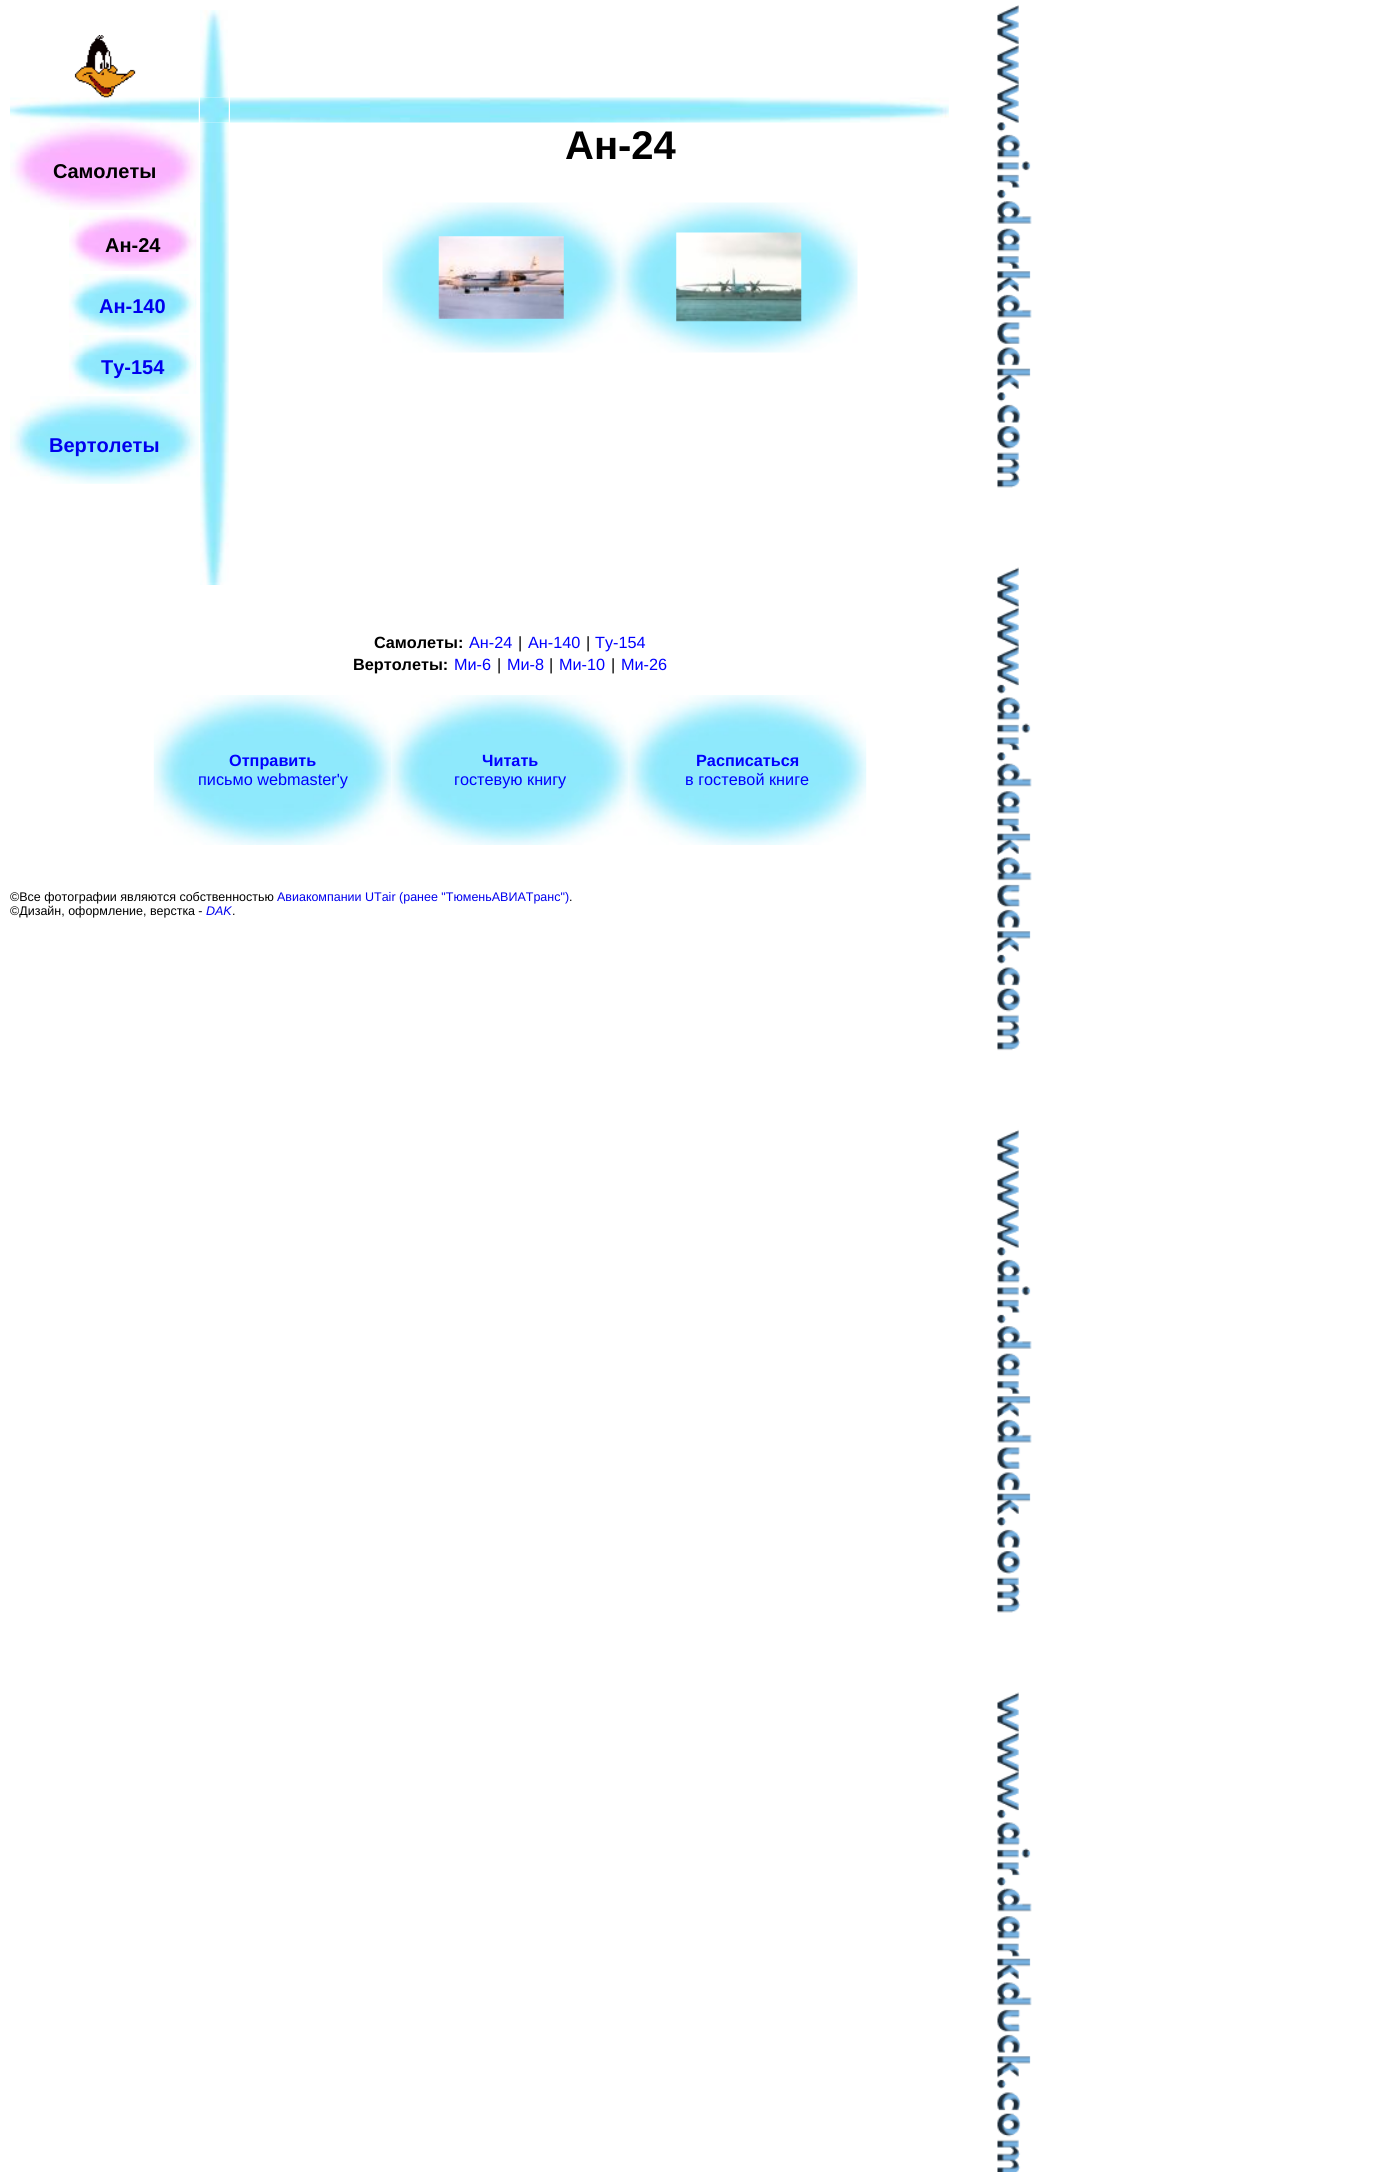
import math
import cairo


def use_color(cr, r, g, b):
  cr.set_source_rgb(r / 255, g / 255, b / 255)

def text(cr, x, y, s, family, size, color, bold=False, italic=False):
  cr.select_font_face(family, cairo.FONT_SLANT_ITALIC if italic else cairo.FONT_SLANT_NORMAL, cairo.FONT_WEIGHT_BOLD if bold else cairo.FONT_WEIGHT_NORMAL)
  cr.set_font_size(size)
  use_color(cr, *color)
  cr.move_to(x, y)
  cr.show_text(s)

def picture(cr, path, x, y, w, h):
  cr.save()
  cr.set_source_surface(cairo.ImageSurface.create_from_png(path), x, y)
  cr.rectangle(x, y, w, h)
  cr.fill()
  cr.restore()

def draw(cr):
  use_color(cr, 255, 255, 255)
  cr.paint()
  picture(cr, "img_01.png", 997, 5, 35, 2167)
  picture(cr, "img_02.png", 74, 35, 62, 63)
  picture(cr, "img_03.png", 200, 10, 28, 88)
  picture(cr, "img_12.png", 10, 122, 189, 88)
  picture(cr, "img_04.png", 10, 97, 189, 26)
  picture(cr, "img_05.png", 200, 97, 29, 26)
  picture(cr, "img_06.png", 230, 97, 719, 26)
  picture(cr, "img_07.png", 200, 122, 29, 463)
  picture(cr, "img_08.png", 382, 202, 238, 151)
  picture(cr, "img_09.png", 438, 236, 126, 83)
  picture(cr, "img_10.png", 620, 202, 238, 151)
  picture(cr, "img_11.png", 676, 232, 126, 90)
  picture(cr, "img_13.png", 69, 212, 128, 59)
  picture(cr, "img_14.png", 68, 274, 129, 59)
  picture(cr, "img_15.png", 68, 335, 129, 59)
  picture(cr, "img_16.png", 10, 396, 189, 88)
  picture(cr, "img_17.png", 153, 695, 239, 150)
  picture(cr, "img_18.png", 391, 695, 238, 150)
  picture(cr, "img_19.png", 629, 695, 238, 150)
  text(cr, 565, 159, "Ан-24", "Liberation Sans", 40, (0, 0, 0), bold=True)
  text(cr, 53, 178, "Самолеты", "Liberation Sans", 20, (0, 0, 0), bold=True)
  text(cr, 105, 252, "Ан-24", "Liberation Sans", 20, (0, 0, 0), bold=True)
  text(cr, 99, 313, "Ан-140", "Liberation Sans", 20, (0, 0, 238), bold=True)
  text(cr, 101, 374, "Ту-154", "Liberation Sans", 20, (0, 0, 238), bold=True)
  text(cr, 49, 452, "Вертолеты", "Liberation Sans", 20, (0, 0, 238), bold=True)
  text(cr, 374, 648, "Самолеты:", "Liberation Sans", 16.25, (0, 0, 0), bold=True)
  text(cr, 469, 648, "Ан-24", "Liberation Sans", 16.25, (0, 0, 255))
  text(cr, 518, 648, "|", "Liberation Sans", 16.25, (0, 0, 0))
  text(cr, 528, 648, "Ан-140", "Liberation Sans", 16.25, (0, 0, 255))
  text(cr, 586, 648, "|", "Liberation Sans", 16.25, (0, 0, 0))
  text(cr, 595, 648, "Ту-154", "Liberation Sans", 16.25, (0, 0, 255))
  text(cr, 353, 670, "Вертолеты:", "Liberation Sans", 16.25, (0, 0, 0), bold=True)
  text(cr, 454, 670, "Ми-6", "Liberation Sans", 16.25, (0, 0, 255))
  text(cr, 497, 670, "|", "Liberation Sans", 16.25, (0, 0, 0))
  text(cr, 507, 670, "Ми-8", "Liberation Sans", 16.25, (0, 0, 255))
  text(cr, 549, 670, "|", "Liberation Sans", 16.25, (0, 0, 0))
  text(cr, 559, 670, "Ми-10", "Liberation Sans", 16.25, (0, 0, 255))
  text(cr, 611, 670, "|", "Liberation Sans", 16.25, (0, 0, 0))
  text(cr, 621, 670, "Ми-26", "Liberation Sans", 16.25, (0, 0, 255))
  text(cr, 229, 766, "Отправить", "Liberation Sans", 16.25, (0, 0, 255), bold=True)
  text(cr, 198, 785, "письмо webmaster'у", "Liberation Sans", 16.25, (0, 0, 255))
  text(cr, 482, 766, "Читать", "Liberation Sans", 16.25, (0, 0, 255), bold=True)
  text(cr, 454, 785, "гостевую книгу", "Liberation Sans", 16.25, (0, 0, 255))
  text(cr, 696, 766, "Расписаться", "Liberation Sans", 16.25, (0, 0, 255), bold=True)
  text(cr, 685, 785, "в гостевой книге", "Liberation Sans", 16.25, (0, 0, 255))
  text(cr, 10, 901, "©Все фотографии являются собственностью", "Liberation Sans", 12.5, (0, 0, 0))
  text(cr, 277, 901, "Авиакомпании UTair (ранее \"ТюменьАВИАТранс\")", "Liberation Sans", 12.5, (0, 0, 238))
  text(cr, 569, 901, ".", "Liberation Sans", 12.5, (0, 0, 0))
  text(cr, 10, 915, "©Дизайн, оформление, верстка -", "Liberation Sans", 12.5, (0, 0, 0))
  text(cr, 206, 915, "DAK", "Liberation Sans", 12.5, (0, 0, 238), italic=True)
  text(cr, 232, 915, ".", "Liberation Sans", 12.5, (0, 0, 0))


surface = cairo.ImageSurface(cairo.FORMAT_RGB24, 1390, 2172)
cr = cairo.Context(surface)
options = cairo.FontOptions()
options.set_hint_metrics(cairo.HINT_METRICS_OFF)
options.set_hint_style(cairo.HINT_STYLE_NONE)
cr.set_font_options(options)
cr.set_miter_limit(4)
draw(cr)
surface.write_to_png("out.png")
